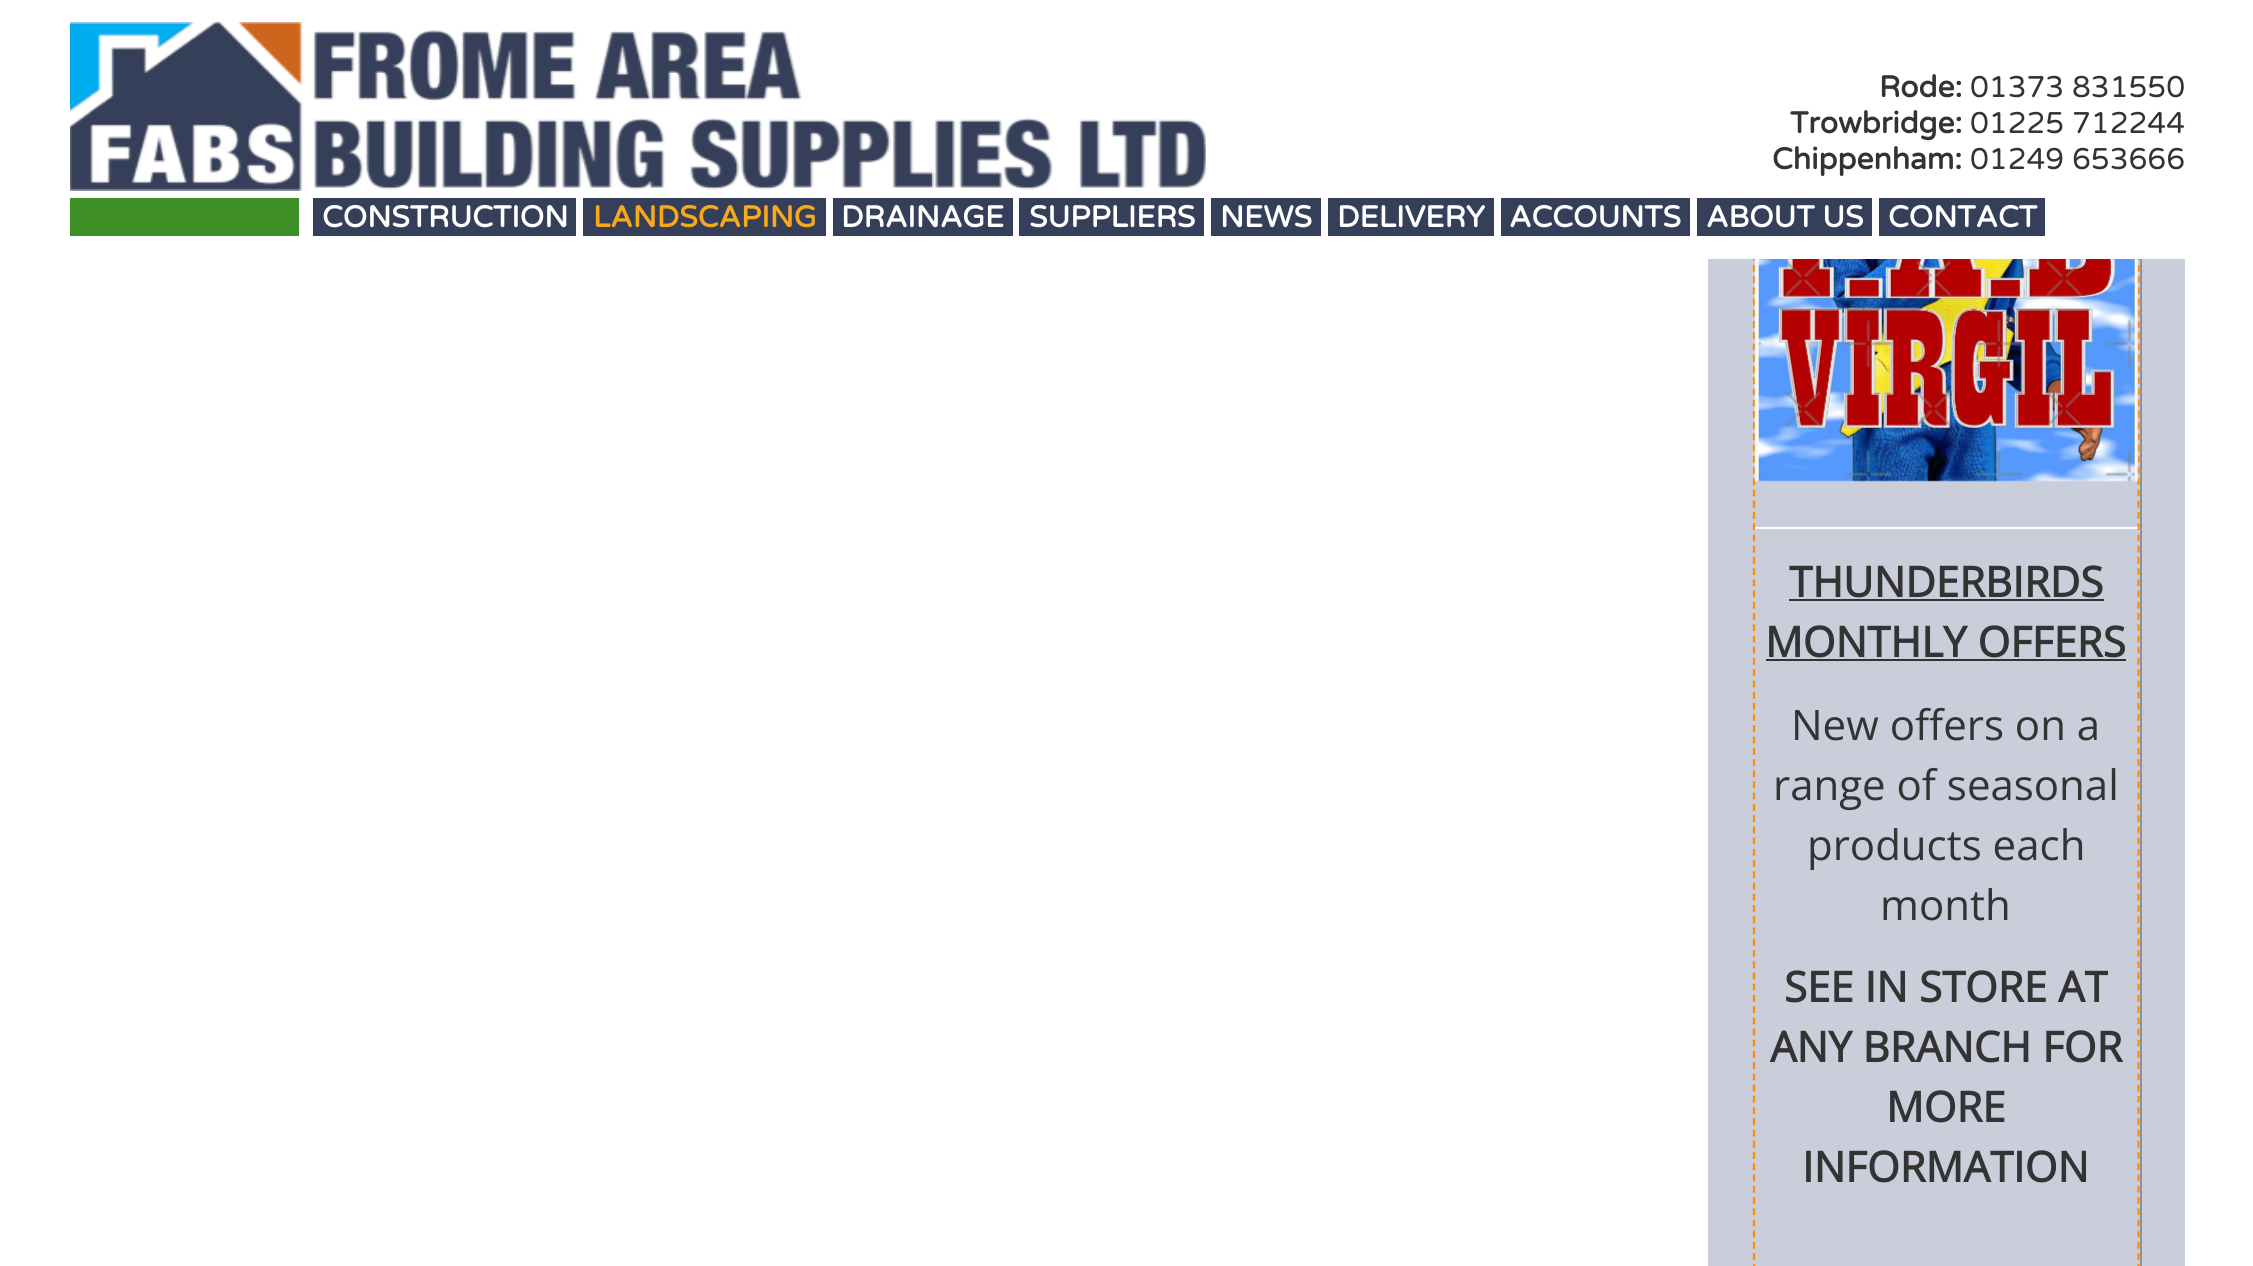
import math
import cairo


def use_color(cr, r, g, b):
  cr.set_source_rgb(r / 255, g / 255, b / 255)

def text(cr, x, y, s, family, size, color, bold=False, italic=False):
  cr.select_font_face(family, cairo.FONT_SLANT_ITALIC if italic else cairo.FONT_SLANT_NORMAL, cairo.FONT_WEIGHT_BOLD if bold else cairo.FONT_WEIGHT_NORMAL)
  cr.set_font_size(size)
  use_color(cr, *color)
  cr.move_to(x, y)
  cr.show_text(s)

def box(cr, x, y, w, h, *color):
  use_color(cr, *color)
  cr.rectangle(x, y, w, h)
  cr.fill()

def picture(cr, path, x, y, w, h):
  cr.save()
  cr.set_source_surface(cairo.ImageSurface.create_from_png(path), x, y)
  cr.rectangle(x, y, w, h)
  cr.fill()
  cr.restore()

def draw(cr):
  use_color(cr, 255, 255, 255)
  cr.paint()
  box(cr, 1708, 259, 477, 1007, 202, 205, 218)
  use_color(cr, 144, 145, 152)
  cr.new_path()
  cr.move_to(1755, 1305)
  cr.line_to(1755, 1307)
  cr.line_to(2142, 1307)
  cr.line_to(2142, -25)
  cr.line_to(2140, -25)
  cr.line_to(2140, 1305)
  cr.close_path()
  cr.fill()
  cr.new_path()
  cr.move_to(2138.5, -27)
  cr.line_to(2138.5, 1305)
  use_color(cr, 255, 140, 0)
  cr.set_line_width(2.2)
  cr.set_dash([6.75, 4.48])
  cr.stroke()
  cr.new_path()
  cr.move_to(1754, -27)
  cr.line_to(1754, 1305)
  cr.stroke()
  box(cr, 1752, 0, 390, 259, 255, 255, 255)
  picture(cr, "img_01.png", 70, 22, 1136, 169)
  box(cr, 70, 198, 229, 38, 62, 142, 38)
  box(cr, 313, 198, 263, 38, 53, 63, 89)
  box(cr, 583, 198, 243, 38, 53, 63, 89)
  box(cr, 833, 198, 180, 38, 53, 63, 89)
  box(cr, 1019, 198, 185, 38, 53, 63, 89)
  box(cr, 1211, 198, 110, 38, 53, 63, 89)
  box(cr, 1328, 198, 166, 38, 53, 63, 89)
  box(cr, 1501, 198, 189, 38, 53, 63, 89)
  box(cr, 1697, 198, 175, 38, 53, 63, 89)
  box(cr, 1879, 198, 166, 38, 53, 63, 89)
  picture(cr, "img_02.png", 1754, 259, 384, 223)
  box(cr, 1755, 527, 383, 2, 255, 255, 255)
  box(cr, 1789, 599, 315, 2, 51, 51, 51)
  box(cr, 1766, 659, 360, 2, 51, 51, 51)
  text(cr, 1879, 97, "Rode:", "Varela Round", 30, (51, 51, 51), bold=True)
  text(cr, 1970, 97, "01373 831550", "Varela Round", 30, (51, 51, 51))
  text(cr, 1790, 133, "Trowbridge:", "Varela Round", 30, (51, 51, 51), bold=True)
  text(cr, 1970, 133, "01225 712244", "Varela Round", 30, (51, 51, 51))
  text(cr, 1772, 169, "Chippenham:", "Varela Round", 30, (51, 51, 51), bold=True)
  text(cr, 1970, 169, "01249 653666", "Varela Round", 30, (51, 51, 51))
  text(cr, 322, 227, "CONSTRUCTION", "Varela Round", 30, (255, 255, 255), bold=True)
  text(cr, 593, 227, "LANDSCAPING", "Varela Round", 30, (247, 168, 27), bold=True)
  text(cr, 841, 227, "DRAINAGE", "Varela Round", 30, (255, 255, 255), bold=True)
  text(cr, 1029, 227, "SUPPLIERS", "Varela Round", 30, (255, 255, 255), bold=True)
  text(cr, 1220, 227, "NEWS", "Varela Round", 30, (255, 255, 255), bold=True)
  text(cr, 1337, 227, "DELIVERY", "Varela Round", 30, (255, 255, 255), bold=True)
  text(cr, 1509, 227, "ACCOUNTS", "Varela Round", 30, (255, 255, 255), bold=True)
  text(cr, 1706, 227, "ABOUT US", "Varela Round", 30, (255, 255, 255), bold=True)
  text(cr, 1888, 227, "CONTACT", "Varela Round", 30, (255, 255, 255), bold=True)
  text(cr, 1789, 597, "THUNDERBIRDS", "Open Sans", 42, (51, 51, 51), bold=True)
  text(cr, 1765, 657, "MONTHLY OFFERS", "Open Sans", 42, (51, 51, 51), bold=True)
  text(cr, 1791, 740, "New offers on a", "Open Sans", 42, (51, 51, 51))
  text(cr, 1773, 800, "range of seasonal", "Open Sans", 42, (51, 51, 51))
  text(cr, 1807, 860, "products each", "Open Sans", 42, (51, 51, 51))
  text(cr, 1880, 920, "month", "Open Sans", 42, (51, 51, 51))
  text(cr, 1784, 1002, "SEE IN STORE AT", "Open Sans", 42, (51, 51, 51), bold=True)
  text(cr, 1770, 1062, "ANY BRANCH FOR", "Open Sans", 42, (51, 51, 51), bold=True)
  text(cr, 1886, 1122, "MORE", "Open Sans", 42, (51, 51, 51), bold=True)
  text(cr, 1802, 1182, "INFORMATION", "Open Sans", 42, (51, 51, 51), bold=True)


surface = cairo.ImageSurface(cairo.FORMAT_RGB24, 2253, 1266)
cr = cairo.Context(surface)
options = cairo.FontOptions()
options.set_hint_metrics(cairo.HINT_METRICS_OFF)
options.set_hint_style(cairo.HINT_STYLE_NONE)
cr.set_font_options(options)
cr.set_miter_limit(4)
draw(cr)
surface.write_to_png("out.png")
